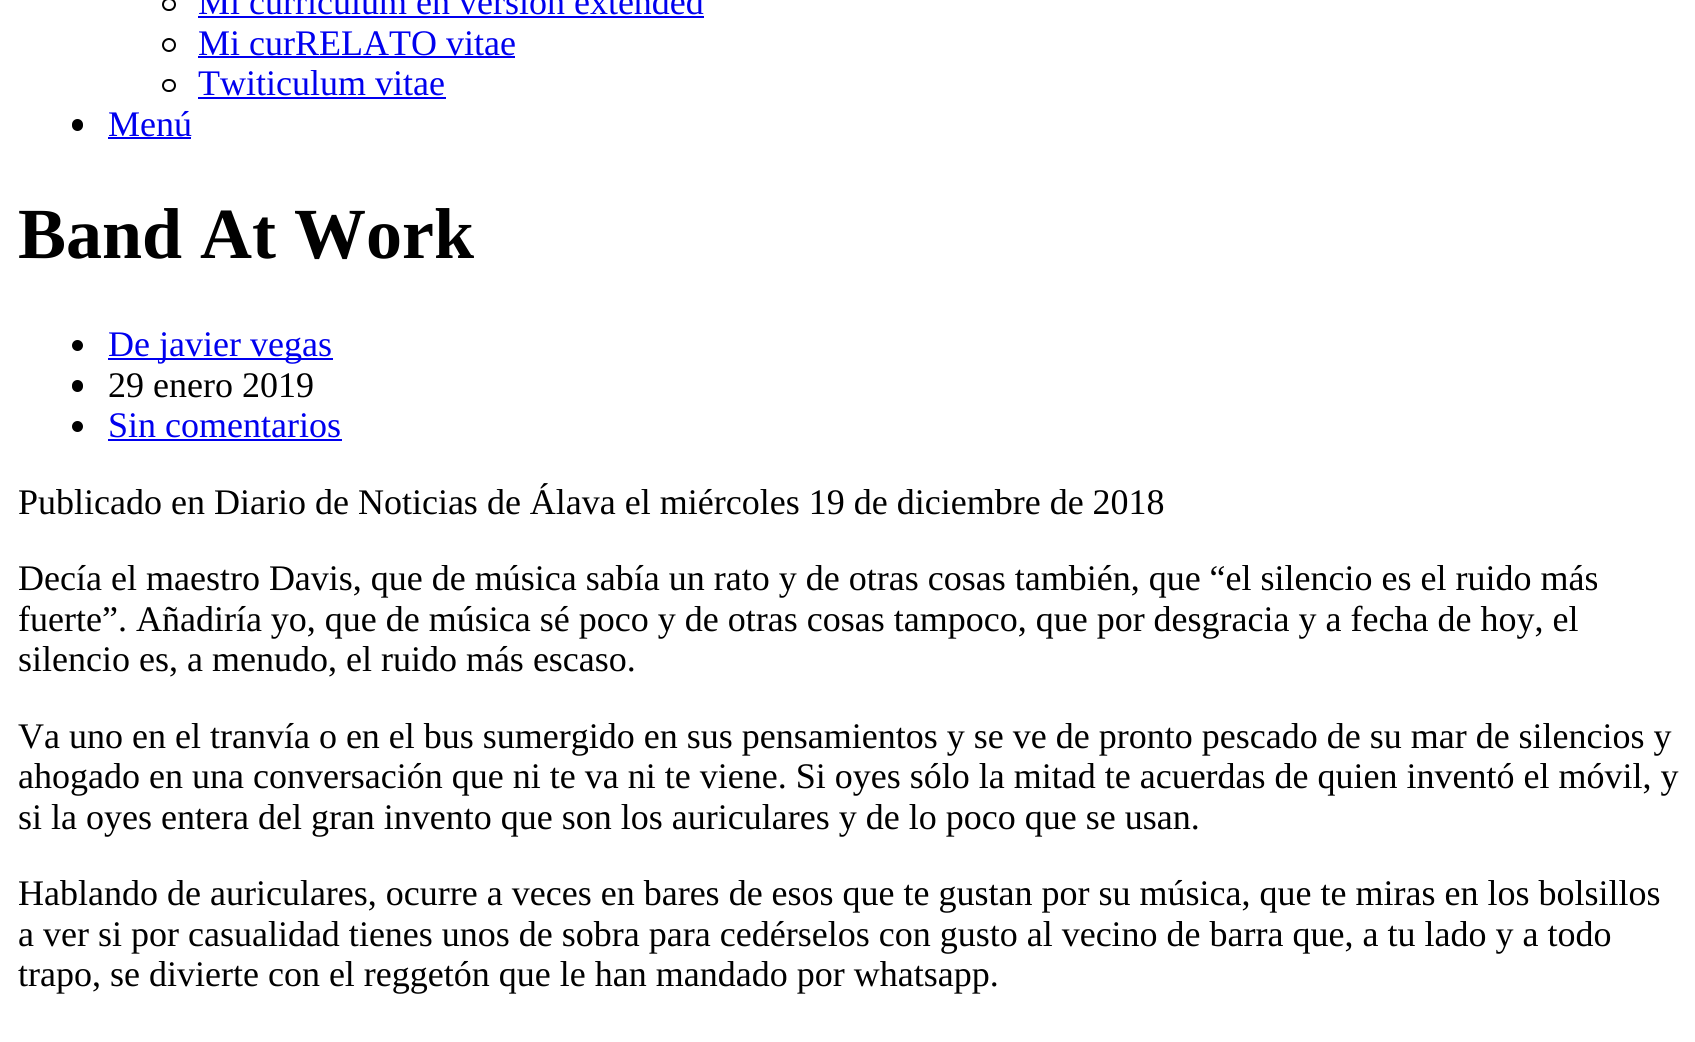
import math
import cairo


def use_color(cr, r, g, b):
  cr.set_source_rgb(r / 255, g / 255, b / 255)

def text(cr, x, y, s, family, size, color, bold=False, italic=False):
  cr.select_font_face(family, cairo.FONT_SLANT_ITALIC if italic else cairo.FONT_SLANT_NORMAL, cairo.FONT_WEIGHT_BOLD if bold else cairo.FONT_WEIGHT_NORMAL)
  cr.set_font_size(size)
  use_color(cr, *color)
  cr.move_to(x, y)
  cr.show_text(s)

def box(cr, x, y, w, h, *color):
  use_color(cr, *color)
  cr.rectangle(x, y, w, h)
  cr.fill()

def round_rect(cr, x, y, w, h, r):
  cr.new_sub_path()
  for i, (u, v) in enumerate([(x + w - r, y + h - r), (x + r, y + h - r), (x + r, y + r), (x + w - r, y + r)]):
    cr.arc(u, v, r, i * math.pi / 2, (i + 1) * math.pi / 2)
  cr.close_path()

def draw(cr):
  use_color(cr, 255, 255, 255)
  cr.paint()
  round_rect(cr, 163, -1, 12, 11, 5.5)
  use_color(cr, 0, 0, 0)
  cr.stroke()
  box(cr, 198, 16, 506, 2, 0, 0, 238)
  cr.arc(169, 45, 6, 0, 2 * math.pi)
  use_color(cr, 0, 0, 0)
  cr.stroke()
  box(cr, 198, 56, 317, 2, 0, 0, 238)
  round_rect(cr, 163, 80, 12, 11, 5.5)
  use_color(cr, 0, 0, 0)
  cr.stroke()
  box(cr, 198, 97, 248, 2, 0, 0, 238)
  use_color(cr, 0, 0, 0)
  round_rect(cr, 72, 119, 11, 12, 5.5)
  cr.fill()
  box(cr, 108, 137, 83, 2, 0, 0, 238)
  use_color(cr, 0, 0, 0)
  cr.arc(77.5, 345.5, 5.5, 0, 2 * math.pi)
  cr.fill()
  box(cr, 108, 358, 225, 2, 0, 0, 238)
  use_color(cr, 0, 0, 0)
  round_rect(cr, 72, 380, 11, 12, 5.5)
  cr.fill()
  cr.arc(77.5, 426.5, 5.5, 0, 2 * math.pi)
  cr.fill()
  box(cr, 108, 439, 234, 2, 0, 0, 238)
  text(cr, 198, 14, "Mi curriculum en versión extended", "Liberation Serif", 36, (0, 0, 238))
  text(cr, 198, 55, "Mi curRELATO vitae", "Liberation Serif", 36, (0, 0, 238))
  text(cr, 198, 95, "Twiticulum vitae", "Liberation Serif", 36, (0, 0, 238))
  text(cr, 108, 136, "Menú", "Liberation Serif", 36, (0, 0, 238))
  text(cr, 18, 258, "Band At Work", "Liberation Serif", 72, (0, 0, 0), bold=True)
  text(cr, 108, 356, "De javier vegas", "Liberation Serif", 36, (0, 0, 238))
  text(cr, 108, 397, "29 enero 2019", "Liberation Serif", 36, (0, 0, 0))
  text(cr, 108, 437, "Sin comentarios", "Liberation Serif", 36, (0, 0, 238))
  text(cr, 18, 514, "Publicado en Diario de Noticias de Álava el miércoles 19 de diciembre de 2018", "Liberation Serif", 36, (0, 0, 0))
  text(cr, 18, 590, "Decía el maestro Davis, que de música sabía un rato y de otras cosas también, que “el silencio es el ruido más", "Liberation Serif", 36, (0, 0, 0))
  text(cr, 18, 631, "fuerte”. Añadiría yo, que de música sé poco y de otras cosas tampoco, que por desgracia y a fecha de hoy, el", "Liberation Serif", 36, (0, 0, 0))
  text(cr, 18, 671, "silencio es, a menudo, el ruido más escaso.", "Liberation Serif", 36, (0, 0, 0))
  text(cr, 18, 748, "Va uno en el tranvía o en el bus sumergido en sus pensamientos y se ve de pronto pescado de su mar de silencios y", "Liberation Serif", 36, (0, 0, 0))
  text(cr, 18, 788, "ahogado en una conversación que ni te va ni te viene. Si oyes sólo la mitad te acuerdas de quien inventó el móvil, y", "Liberation Serif", 36, (0, 0, 0))
  text(cr, 18, 829, "si la oyes entera del gran invento que son los auriculares y de lo poco que se usan.", "Liberation Serif", 36, (0, 0, 0))
  text(cr, 18, 905, "Hablando de auriculares, ocurre a veces en bares de esos que te gustan por su música, que te miras en los bolsillos", "Liberation Serif", 36, (0, 0, 0))
  text(cr, 18, 946, "a ver si por casualidad tienes unos de sobra para cedérselos con gusto al vecino de barra que, a tu lado y a todo", "Liberation Serif", 36, (0, 0, 0))
  text(cr, 18, 986, "trapo, se divierte con el reggetón que le han mandado por whatsapp.", "Liberation Serif", 36, (0, 0, 0))


surface = cairo.ImageSurface(cairo.FORMAT_RGB24, 1695, 1042)
cr = cairo.Context(surface)
options = cairo.FontOptions()
options.set_hint_metrics(cairo.HINT_METRICS_OFF)
options.set_hint_style(cairo.HINT_STYLE_NONE)
cr.set_font_options(options)
cr.set_miter_limit(4)
draw(cr)
surface.write_to_png("out.png")
